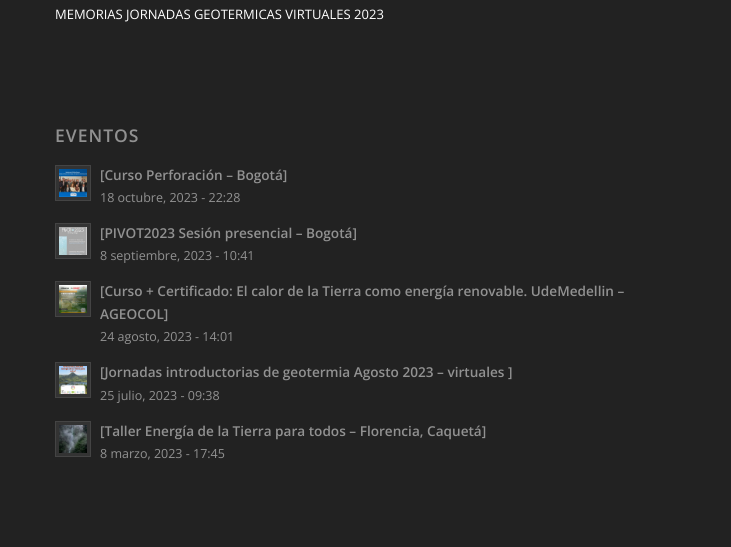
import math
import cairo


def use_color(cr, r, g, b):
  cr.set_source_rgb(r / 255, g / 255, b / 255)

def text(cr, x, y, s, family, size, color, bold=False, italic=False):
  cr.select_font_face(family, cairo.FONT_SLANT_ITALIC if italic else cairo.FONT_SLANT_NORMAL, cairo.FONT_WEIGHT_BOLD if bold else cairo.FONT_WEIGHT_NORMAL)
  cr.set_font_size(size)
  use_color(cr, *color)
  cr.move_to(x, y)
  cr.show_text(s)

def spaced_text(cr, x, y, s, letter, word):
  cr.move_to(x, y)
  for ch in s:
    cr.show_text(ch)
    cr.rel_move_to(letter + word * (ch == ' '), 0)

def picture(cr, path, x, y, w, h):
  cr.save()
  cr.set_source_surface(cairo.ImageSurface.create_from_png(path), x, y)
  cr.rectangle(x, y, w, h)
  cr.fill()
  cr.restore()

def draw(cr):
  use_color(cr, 34, 34, 34)
  cr.paint()
  use_color(cr, 51, 51, 51)
  cr.rectangle(55.5, 165.5, 35, 35)
  cr.fill_preserve()
  use_color(cr, 68, 68, 68)
  cr.set_line_width(1)
  cr.stroke()
  picture(cr, "img_01.png", 59, 169, 28, 28)
  use_color(cr, 51, 51, 51)
  cr.rectangle(55.5, 223.5, 35, 35)
  cr.fill_preserve()
  use_color(cr, 68, 68, 68)
  cr.stroke()
  picture(cr, "img_02.png", 59, 227, 28, 28)
  use_color(cr, 51, 51, 51)
  cr.rectangle(55.5, 281.5, 35, 35)
  cr.fill_preserve()
  use_color(cr, 68, 68, 68)
  cr.stroke()
  picture(cr, "img_03.png", 59, 285, 28, 28)
  use_color(cr, 51, 51, 51)
  cr.rectangle(55.5, 362.5, 35, 35)
  cr.fill_preserve()
  use_color(cr, 68, 68, 68)
  cr.stroke()
  picture(cr, "img_04.png", 59, 366, 28, 28)
  use_color(cr, 51, 51, 51)
  cr.rectangle(55.5, 421.5, 35, 35)
  cr.fill_preserve()
  use_color(cr, 68, 68, 68)
  cr.stroke()
  picture(cr, "img_05.png", 59, 425, 28, 28)
  text(cr, 55, 19, "MEMORIAS JORNADAS GEOTERMICAS VIRTUALES 2023", "Open Sans", 13, (255, 255, 255))
  cr.select_font_face("Open Sans SemiBold")
  cr.set_font_size(17.5)
  use_color(cr, 145, 145, 145)
  spaced_text(cr, 55, 142, "EVENTOS", 1, 0)
  text(cr, 100, 180, "[Curso Perforación – Bogotá]", "Open Sans SemiBold", 13.6, (145, 145, 145))
  text(cr, 100, 202, "18 octubre, 2023 - 22:28", "Open Sans", 12.5, (145, 145, 145))
  text(cr, 100, 238, "[PIVOT2023 Sesión presencial – Bogotá]", "Open Sans SemiBold", 13.6, (145, 145, 145))
  text(cr, 100, 260, "8 septiembre, 2023 - 10:41", "Open Sans", 12.5, (145, 145, 145))
  text(cr, 100, 296, "[Curso + Certificado: El calor de la Tierra como energía renovable. UdeMedellin –", "Open Sans SemiBold", 13.6, (145, 145, 145))
  text(cr, 100, 319, "AGEOCOL]", "Open Sans SemiBold", 13.6, (145, 145, 145))
  text(cr, 100, 341, "24 agosto, 2023 - 14:01", "Open Sans", 12.5, (145, 145, 145))
  text(cr, 100, 377, "[Jornadas introductorias de geotermia Agosto 2023 – virtuales ]", "Open Sans SemiBold", 13.6, (145, 145, 145))
  text(cr, 100, 400, "25 julio, 2023 - 09:38", "Open Sans", 12.5, (145, 145, 145))
  text(cr, 100, 436, "[Taller Energía de la Tierra para todos – Florencia, Caquetá]", "Open Sans SemiBold", 13.6, (145, 145, 145))
  text(cr, 100, 458, "8 marzo, 2023 - 17:45", "Open Sans", 12.5, (145, 145, 145))


surface = cairo.ImageSurface(cairo.FORMAT_RGB24, 731, 547)
cr = cairo.Context(surface)
options = cairo.FontOptions()
options.set_hint_metrics(cairo.HINT_METRICS_OFF)
options.set_hint_style(cairo.HINT_STYLE_NONE)
cr.set_font_options(options)
cr.set_miter_limit(4)
draw(cr)
surface.write_to_png("out.png")
